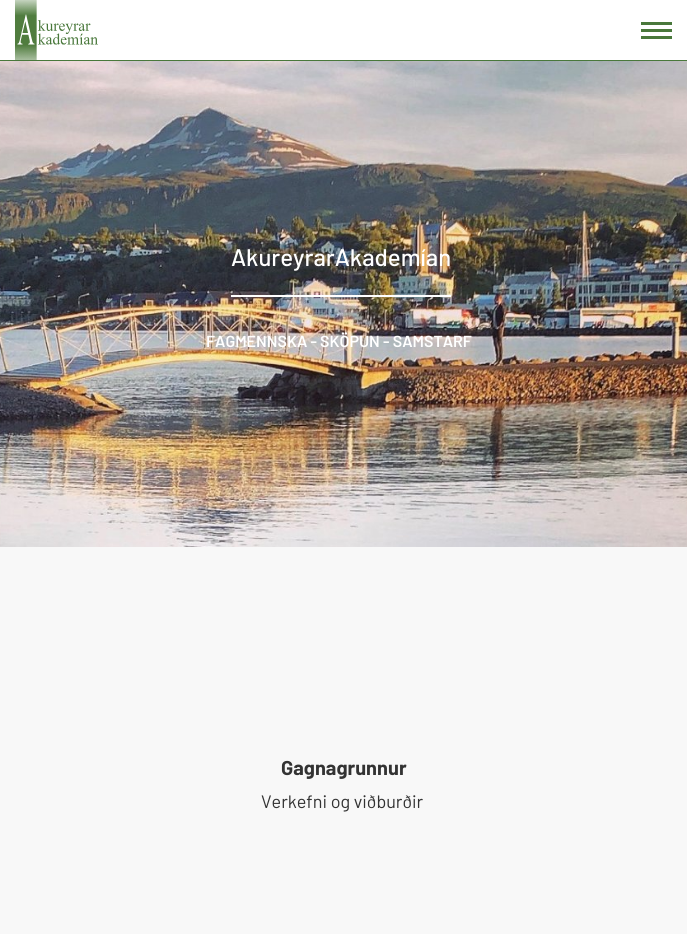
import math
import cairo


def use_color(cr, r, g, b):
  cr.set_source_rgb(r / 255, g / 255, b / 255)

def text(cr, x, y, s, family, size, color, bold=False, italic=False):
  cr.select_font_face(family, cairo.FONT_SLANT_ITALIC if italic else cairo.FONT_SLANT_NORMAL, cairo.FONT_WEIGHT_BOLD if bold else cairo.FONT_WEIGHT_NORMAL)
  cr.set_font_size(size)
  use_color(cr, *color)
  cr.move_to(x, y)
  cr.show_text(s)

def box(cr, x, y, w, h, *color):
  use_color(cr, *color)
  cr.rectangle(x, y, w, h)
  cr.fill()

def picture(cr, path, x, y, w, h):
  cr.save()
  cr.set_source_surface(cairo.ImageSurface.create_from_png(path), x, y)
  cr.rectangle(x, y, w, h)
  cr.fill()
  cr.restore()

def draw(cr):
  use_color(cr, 255, 255, 255)
  cr.paint()
  box(cr, 0, 60, 687, 1, 73, 120, 59)
  picture(cr, "img_01.png", 15, 0, 83, 60)
  box(cr, 641, 22, 31, 3, 73, 120, 59)
  box(cr, 641, 29, 31, 3, 73, 120, 59)
  box(cr, 641, 36, 31, 3, 73, 120, 59)
  picture(cr, "img_02.png", 0, 61, 687, 486)
  box(cr, 231, 295, 220, 2, 255, 255, 255)
  box(cr, 0, 547, 687, 387, 248, 248, 248)
  text(cr, 231, 266, "AkureyrarAkademían", "Barlow Medium", 24, (255, 255, 255))
  text(cr, 206, 347, "FAGMENNSKA - SKÖPUN - SAMSTARF", "Barlow SemiBold", 16, (255, 255, 255))
  text(cr, 281, 775, "Gagnagrunnur", "Barlow", 20, (51, 51, 51), bold=True)
  text(cr, 261, 808, "Verkefni og viðburðir", "Barlow", 18, (51, 51, 51))


surface = cairo.ImageSurface(cairo.FORMAT_RGB24, 687, 934)
cr = cairo.Context(surface)
options = cairo.FontOptions()
options.set_hint_metrics(cairo.HINT_METRICS_OFF)
options.set_hint_style(cairo.HINT_STYLE_NONE)
cr.set_font_options(options)
cr.set_miter_limit(4)
draw(cr)
surface.write_to_png("out.png")
